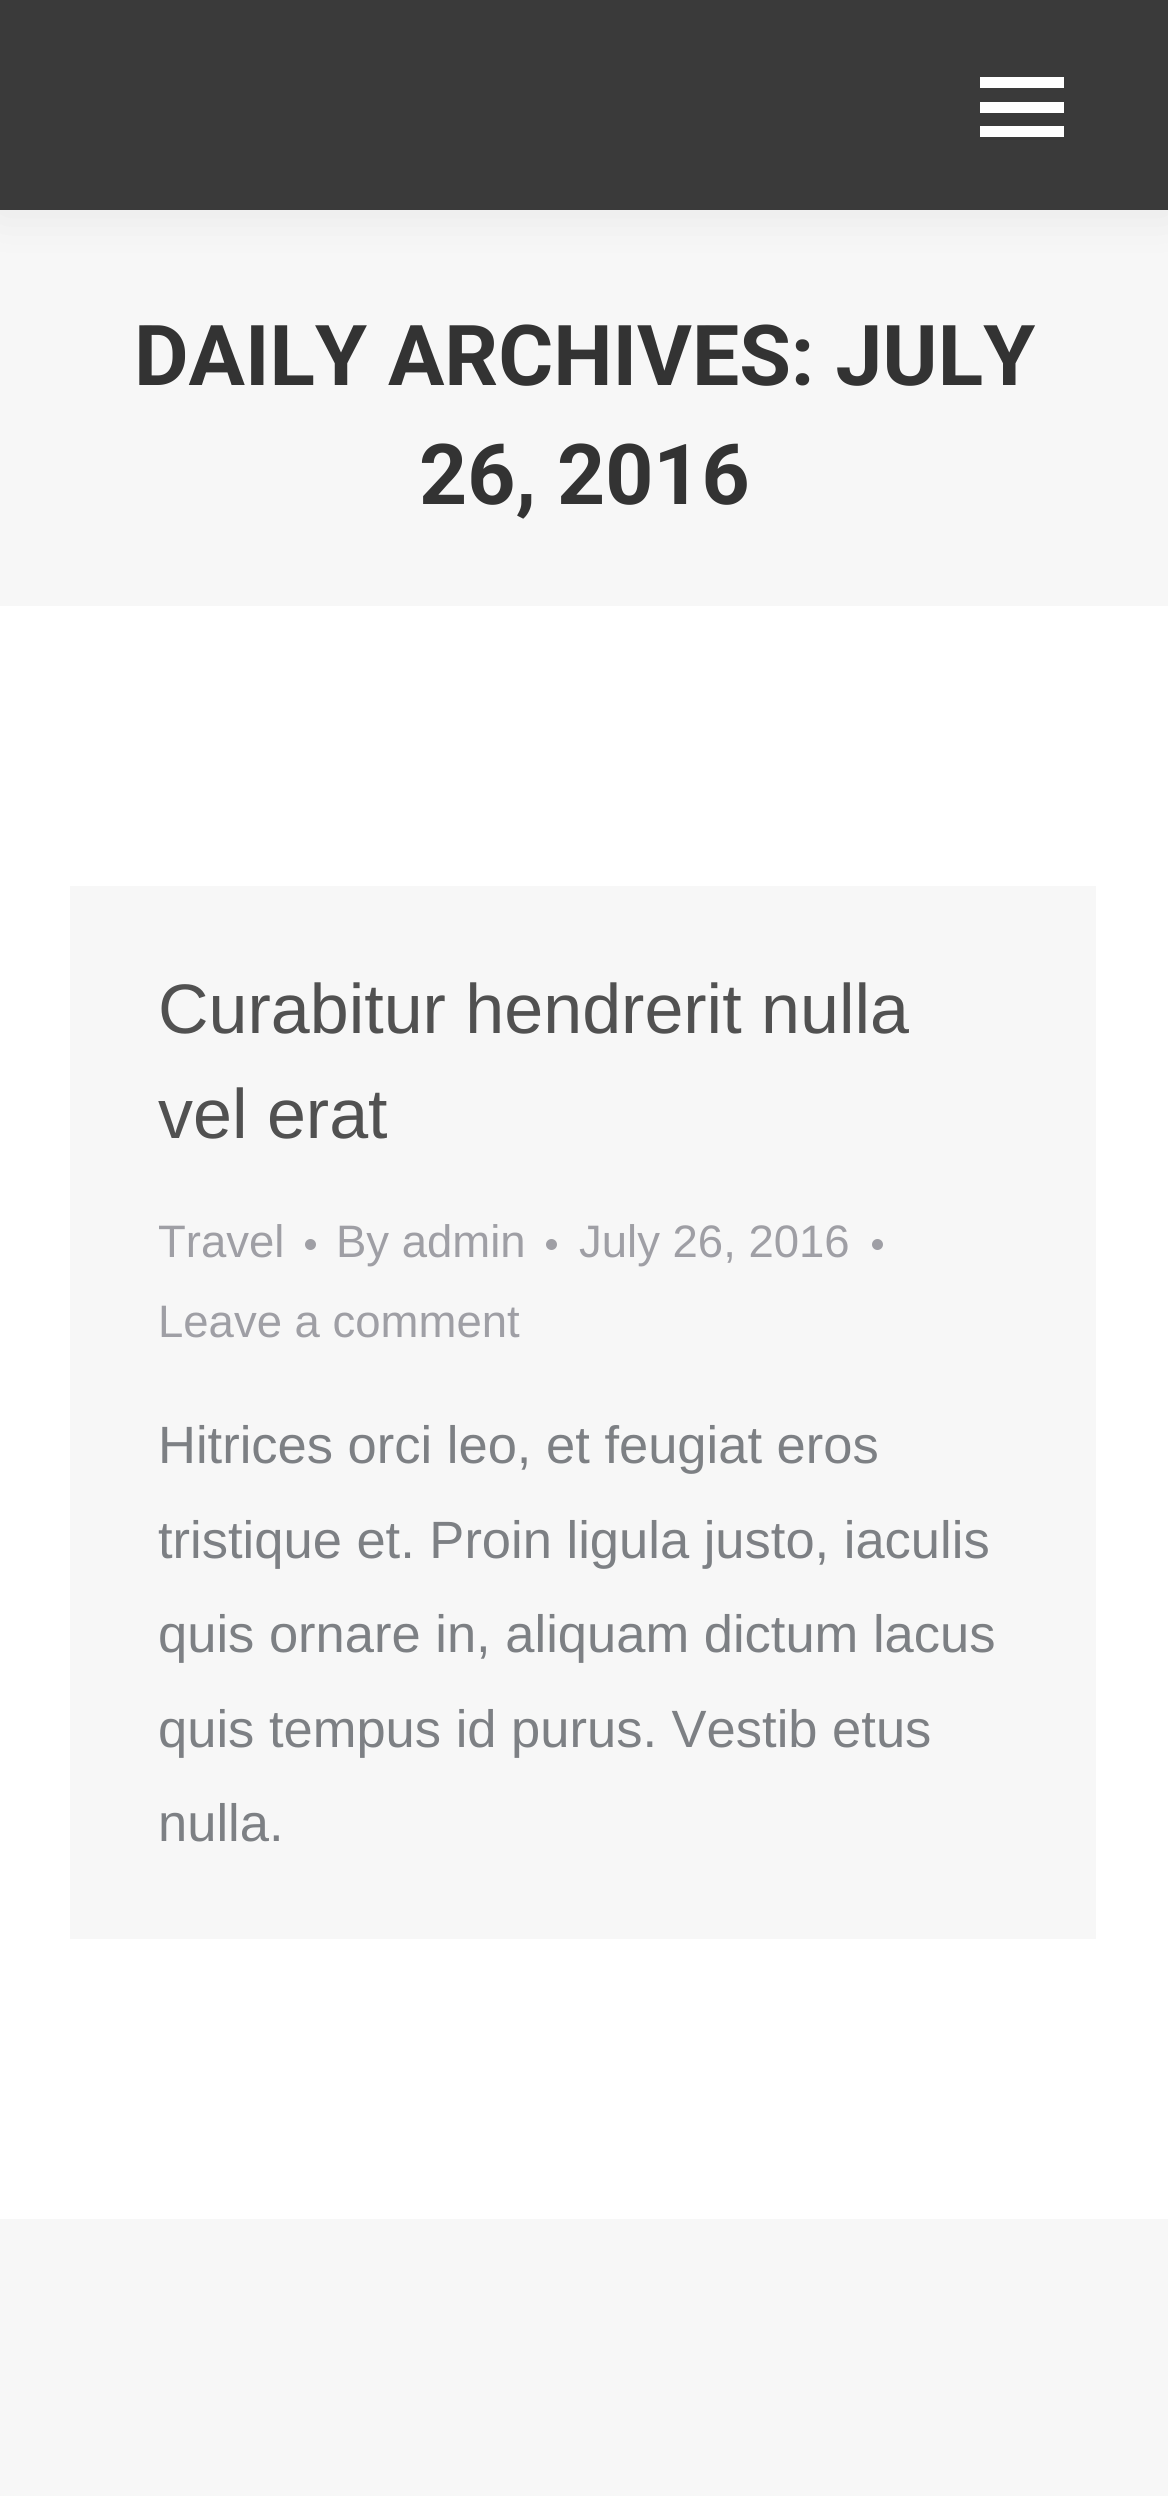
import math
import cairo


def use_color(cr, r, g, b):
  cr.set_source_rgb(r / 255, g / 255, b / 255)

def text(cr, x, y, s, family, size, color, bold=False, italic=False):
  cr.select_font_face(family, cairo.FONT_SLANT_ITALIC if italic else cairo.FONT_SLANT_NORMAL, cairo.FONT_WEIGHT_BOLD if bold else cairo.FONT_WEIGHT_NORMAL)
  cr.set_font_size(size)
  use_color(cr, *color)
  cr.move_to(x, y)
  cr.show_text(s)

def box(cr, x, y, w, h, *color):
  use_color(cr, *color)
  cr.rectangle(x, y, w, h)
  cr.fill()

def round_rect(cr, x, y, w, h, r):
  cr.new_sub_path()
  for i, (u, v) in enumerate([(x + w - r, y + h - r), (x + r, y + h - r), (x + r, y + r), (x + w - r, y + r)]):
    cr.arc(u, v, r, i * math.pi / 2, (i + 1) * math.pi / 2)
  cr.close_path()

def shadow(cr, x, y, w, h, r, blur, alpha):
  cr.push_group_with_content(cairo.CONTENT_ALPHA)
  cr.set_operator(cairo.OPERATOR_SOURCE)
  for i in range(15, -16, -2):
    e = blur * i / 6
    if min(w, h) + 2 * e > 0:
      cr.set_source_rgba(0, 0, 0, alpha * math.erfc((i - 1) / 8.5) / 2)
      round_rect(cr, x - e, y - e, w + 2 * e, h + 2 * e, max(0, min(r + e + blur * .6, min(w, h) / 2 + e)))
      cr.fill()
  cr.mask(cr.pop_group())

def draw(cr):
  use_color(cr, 247, 247, 247)
  cr.paint()
  box(cr, 0, 606, 1168, 1613, 255, 255, 255)
  use_color(cr, 0, 0, 0)
  shadow(cr, -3, -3, 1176, 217, 0, 26, 0.07)
  box(cr, 0, 0, 1168, 210, 58, 58, 58)
  box(cr, 980, 77, 84, 11, 255, 255, 255)
  box(cr, 980, 102, 84, 11, 255, 255, 255)
  box(cr, 980, 126, 84, 11, 255, 255, 255)
  box(cr, 70, 886, 1026, 1053, 247, 247, 247)
  use_color(cr, 159, 159, 165)
  cr.arc(310.5, 1244.5, 5.5, 0, 2 * math.pi)
  cr.fill()
  cr.arc(551.5, 1244.5, 5.5, 0, 2 * math.pi)
  cr.fill()
  cr.arc(877.5, 1244.5, 5.5, 0, 2 * math.pi)
  cr.fill()
  text(cr, 134, 385, "DAILY ARCHIVES: JULY", "Roboto", 84, (51, 51, 51), bold=True)
  text(cr, 419, 504, "26, 2016", "Roboto", 84, (51, 51, 51), bold=True)
  text(cr, 158, 1033, "Curabitur hendrerit nulla", "Liberation Sans", 70, (81, 81, 81))
  text(cr, 158, 1138, "vel erat", "Liberation Sans", 70, (81, 81, 81))
  text(cr, 158, 1257, "Travel", "Liberation Sans", 45.5, (159, 159, 165))
  text(cr, 336, 1257, "By admin", "Liberation Sans", 45.5, (159, 159, 165))
  text(cr, 579, 1257, "July 26, 2016", "Liberation Sans", 45.5, (159, 159, 165))
  text(cr, 158, 1337, "Leave a comment", "Liberation Sans", 45.5, (159, 159, 165))
  text(cr, 158, 1463, "Hitrices orci leo, et feugiat eros", "Liberation Sans", 52.5, (125, 128, 132))
  text(cr, 158, 1558, "tristique et. Proin ligula justo, iaculis", "Liberation Sans", 52.5, (125, 128, 132))
  text(cr, 158, 1652, "quis ornare in, aliquam dictum lacus", "Liberation Sans", 52.5, (125, 128, 132))
  text(cr, 158, 1747, "quis tempus id purus. Vestib etus", "Liberation Sans", 52.5, (125, 128, 132))
  text(cr, 158, 1841, "nulla.", "Liberation Sans", 52.5, (125, 128, 132))


surface = cairo.ImageSurface(cairo.FORMAT_RGB24, 1168, 2496)
cr = cairo.Context(surface)
options = cairo.FontOptions()
options.set_hint_metrics(cairo.HINT_METRICS_OFF)
options.set_hint_style(cairo.HINT_STYLE_NONE)
cr.set_font_options(options)
cr.set_miter_limit(4)
draw(cr)
surface.write_to_png("out.png")
